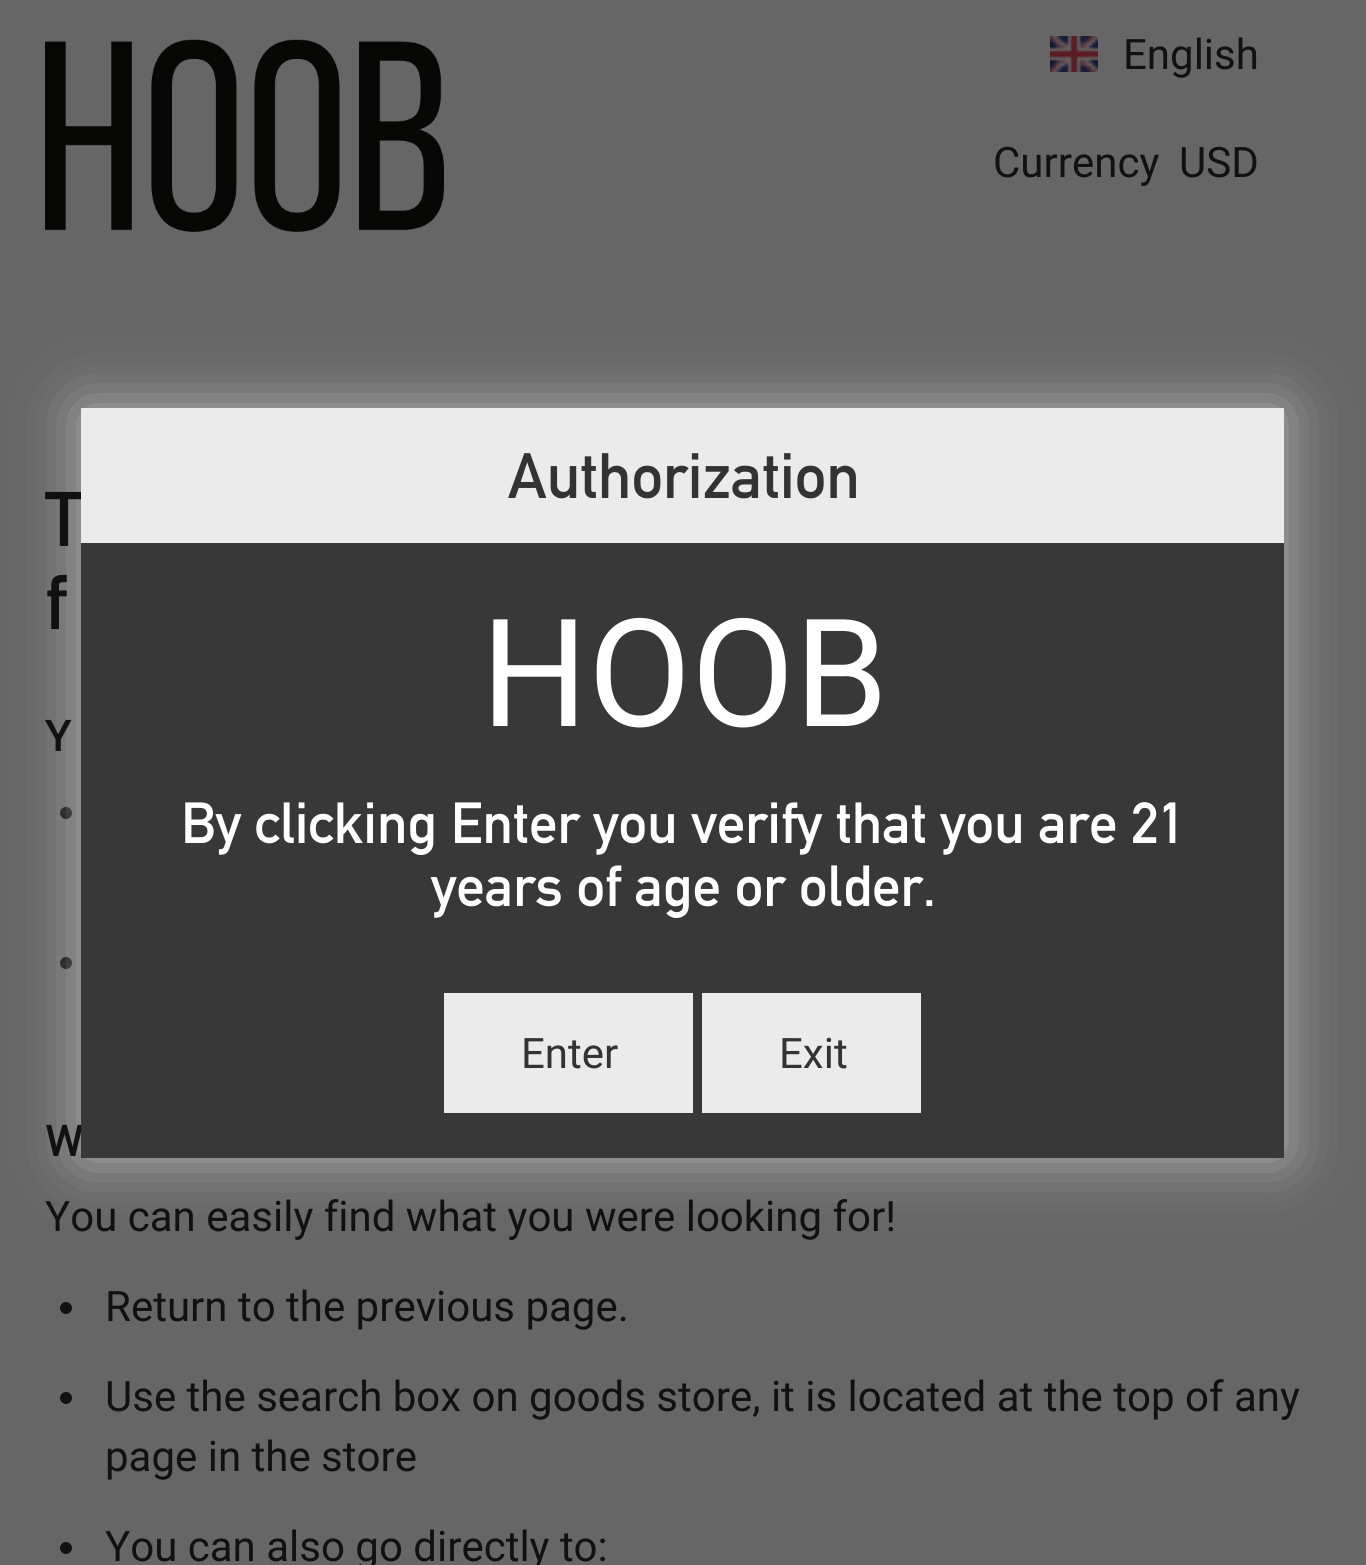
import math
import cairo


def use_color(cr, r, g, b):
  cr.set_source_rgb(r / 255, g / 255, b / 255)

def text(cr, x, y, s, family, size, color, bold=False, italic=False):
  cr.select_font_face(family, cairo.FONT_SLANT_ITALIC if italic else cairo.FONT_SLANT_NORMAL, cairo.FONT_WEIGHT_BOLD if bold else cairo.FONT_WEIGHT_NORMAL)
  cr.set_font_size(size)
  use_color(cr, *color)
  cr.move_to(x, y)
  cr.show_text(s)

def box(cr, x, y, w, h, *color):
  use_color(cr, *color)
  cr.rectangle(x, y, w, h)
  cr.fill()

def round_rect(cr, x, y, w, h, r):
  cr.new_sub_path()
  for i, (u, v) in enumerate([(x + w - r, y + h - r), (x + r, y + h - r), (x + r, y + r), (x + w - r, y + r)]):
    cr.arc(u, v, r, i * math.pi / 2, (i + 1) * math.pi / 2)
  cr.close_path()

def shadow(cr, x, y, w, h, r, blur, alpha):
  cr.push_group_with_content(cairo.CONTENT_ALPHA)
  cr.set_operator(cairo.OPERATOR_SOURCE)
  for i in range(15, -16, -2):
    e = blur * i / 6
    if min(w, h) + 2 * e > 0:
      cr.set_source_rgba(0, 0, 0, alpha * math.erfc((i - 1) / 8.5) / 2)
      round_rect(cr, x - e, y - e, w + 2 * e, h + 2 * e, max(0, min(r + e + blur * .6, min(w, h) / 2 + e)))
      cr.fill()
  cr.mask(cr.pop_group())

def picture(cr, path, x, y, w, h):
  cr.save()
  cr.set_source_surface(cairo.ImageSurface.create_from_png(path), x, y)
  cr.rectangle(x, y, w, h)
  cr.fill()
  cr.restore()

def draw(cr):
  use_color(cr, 102, 102, 102)
  cr.paint()
  picture(cr, "img_01.png", 45, 39, 399, 193)
  picture(cr, "img_02.png", 1050, 36, 48, 36)
  use_color(cr, 17, 17, 17)
  cr.arc(66, 813, 6, 0, 2 * math.pi)
  cr.fill()
  cr.arc(66, 963, 6, 0, 2 * math.pi)
  cr.fill()
  cr.save()
  cr.set_fill_rule(cairo.FILL_RULE_EVEN_ODD)
  cr.new_path()
  cr.move_to(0, 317)
  cr.line_to(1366, 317)
  cr.line_to(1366, 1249)
  cr.line_to(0, 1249)
  cr.close_path()
  cr.move_to(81, 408)
  cr.line_to(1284, 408)
  cr.line_to(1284, 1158)
  cr.line_to(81, 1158)
  cr.close_path()
  cr.clip()
  use_color(cr, 255, 255, 255)
  shadow(cr, 81, 408, 1203, 750, 0, 30, 0.5)
  cr.restore()
  cr.arc(66, 1308, 6, 0, 2 * math.pi)
  cr.fill()
  cr.arc(66, 1398, 6, 0, 2 * math.pi)
  cr.fill()
  cr.arc(66, 1548, 6, 0, 2 * math.pi)
  cr.fill()
  text(cr, 1123, 69, "English", "Roboto", 42, (17, 17, 17))
  text(cr, 993, 177, "Currency", "Roboto", 42, (17, 17, 17))
  text(cr, 1179, 177, "USD", "Roboto", 42, (17, 17, 17))
  text(cr, 45, 546, "T", "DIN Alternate", 76, (17, 17, 17), bold=True)
  text(cr, 45, 629, "f", "DIN Alternate", 76, (17, 17, 17), bold=True)
  text(cr, 45, 751, "Y", "Roboto", 42, (17, 17, 17), bold=True)
  text(cr, 45, 1156, "W", "Roboto", 42, (17, 17, 17), bold=True)
  cr.set_source_rgba(0.2, 0.2, 0.2, 0.9)
  cr.rectangle(81, 408, 1203, 750)
  cr.fill()
  box(cr, 702, 993, 219, 120, 235, 235, 235)
  text(cr, 779, 1068, "Exit", "Roboto", 42, (51, 51, 51))
  box(cr, 444, 993, 249, 120, 235, 235, 235)
  text(cr, 521, 1068, "Enter", "Roboto", 42, (51, 51, 51))
  text(cr, 431, 906, "years of age or older.", "DIN Alternate", 57, (255, 255, 255), bold=True)
  text(cr, 181, 843, "By clicking Enter you verify that you are 21", "DIN Alternate", 57, (255, 255, 255), bold=True)
  text(cr, 481, 726, "HOOB", "Roboto", 150, (255, 255, 255))
  cr.set_source_rgba(1, 1, 1, 0.9)
  cr.rectangle(81, 408, 1203, 135)
  cr.fill()
  text(cr, 508, 498, "Authorization", "DIN Alternate", 63, (51, 51, 51), bold=True)
  text(cr, 45, 1231, "You can easily find what you were looking for!", "Roboto", 42, (17, 17, 17))
  text(cr, 105, 1321, "Return to the previous page.", "Roboto", 42, (17, 17, 17))
  text(cr, 105, 1411, "Use the search box on goods store, it is located at the top of any", "Roboto", 42, (17, 17, 17))
  text(cr, 105, 1471, "page in the store", "Roboto", 42, (17, 17, 17))
  text(cr, 105, 1561, "You can also go directly to:", "Roboto", 42, (17, 17, 17))


surface = cairo.ImageSurface(cairo.FORMAT_RGB24, 1366, 1565)
cr = cairo.Context(surface)
options = cairo.FontOptions()
options.set_hint_metrics(cairo.HINT_METRICS_OFF)
options.set_hint_style(cairo.HINT_STYLE_NONE)
cr.set_font_options(options)
cr.set_miter_limit(4)
draw(cr)
surface.write_to_png("out.png")
